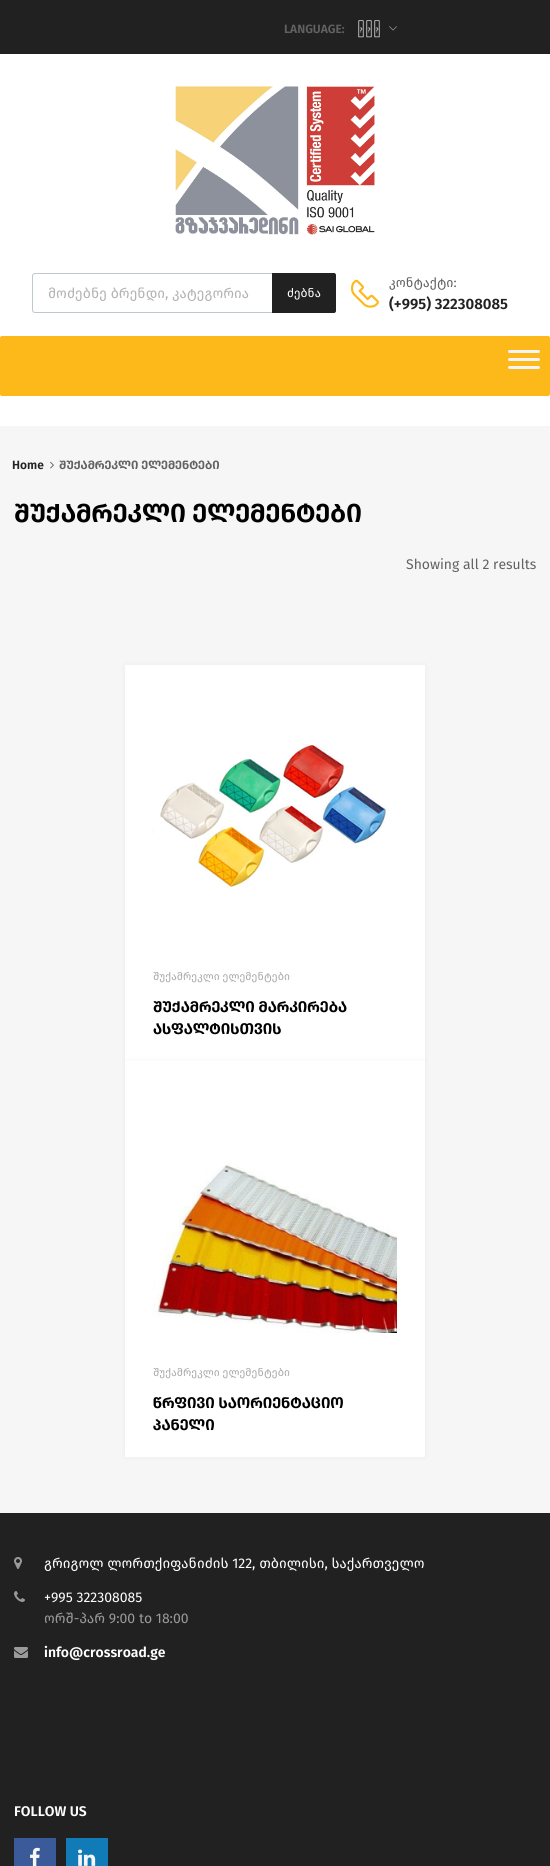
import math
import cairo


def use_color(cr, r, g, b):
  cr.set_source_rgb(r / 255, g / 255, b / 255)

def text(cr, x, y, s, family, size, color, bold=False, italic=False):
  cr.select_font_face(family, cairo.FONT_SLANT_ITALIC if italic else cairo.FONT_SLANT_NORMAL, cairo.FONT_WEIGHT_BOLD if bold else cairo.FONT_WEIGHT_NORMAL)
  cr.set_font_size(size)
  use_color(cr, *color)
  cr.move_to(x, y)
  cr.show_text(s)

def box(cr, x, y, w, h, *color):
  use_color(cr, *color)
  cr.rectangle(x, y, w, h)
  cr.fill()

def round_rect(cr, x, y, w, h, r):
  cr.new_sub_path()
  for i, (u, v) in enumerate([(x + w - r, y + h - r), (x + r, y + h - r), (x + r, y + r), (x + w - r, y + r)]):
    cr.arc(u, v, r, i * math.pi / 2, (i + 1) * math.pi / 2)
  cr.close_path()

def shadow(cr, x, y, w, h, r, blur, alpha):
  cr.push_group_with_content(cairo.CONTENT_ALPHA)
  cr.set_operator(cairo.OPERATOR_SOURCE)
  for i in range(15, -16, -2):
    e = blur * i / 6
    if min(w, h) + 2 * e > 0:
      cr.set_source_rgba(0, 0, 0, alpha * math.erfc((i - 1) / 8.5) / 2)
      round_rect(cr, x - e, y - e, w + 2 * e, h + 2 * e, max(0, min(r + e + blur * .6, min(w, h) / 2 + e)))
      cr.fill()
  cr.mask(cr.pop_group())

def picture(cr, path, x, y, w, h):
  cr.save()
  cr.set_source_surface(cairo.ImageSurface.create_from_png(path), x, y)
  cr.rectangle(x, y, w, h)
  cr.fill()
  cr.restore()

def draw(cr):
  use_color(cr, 246, 246, 246)
  cr.paint()
  box(cr, 0, 54, 550, 372, 255, 255, 255)
  box(cr, 0, 0, 550, 54, 33, 33, 33)
  picture(cr, "img_01.png", 389, 26, 8, 5)
  picture(cr, "img_02.png", 175, 86, 200, 149)
  round_rect(cr, 32.5, 273.5, 303, 39, 2.5)
  use_color(cr, 190, 200, 206)
  cr.set_line_width(1)
  cr.stroke()
  use_color(cr, 33, 33, 33)
  cr.new_path()
  cr.move_to(272, 273)
  cr.line_to(334, 273)
  cr.curve_to(335, 273, 336, 274, 336, 275)
  cr.line_to(336, 311)
  cr.curve_to(336, 312, 335, 313, 334, 313)
  cr.line_to(272, 313)
  cr.close_path()
  cr.fill()
  picture(cr, "img_03.png", 350, 279, 29, 29)
  use_color(cr, 253, 184, 25)
  round_rect(cr, 0, 336, 550, 60, 2)
  cr.fill()
  use_color(cr, 241, 245, 247)
  round_rect(cr, 508, 350, 32, 3, 1.5)
  cr.fill()
  round_rect(cr, 508, 358, 32, 3, 1.5)
  cr.fill()
  round_rect(cr, 508, 366, 32, 3, 1.5)
  cr.fill()
  picture(cr, "img_04.png", 50, 461, 4, 8)
  use_color(cr, 0, 0, 0)
  shadow(cr, 125, 665, 300, 396, 0, 2.5, 0.05)
  box(cr, 125, 665, 300, 396, 255, 255, 255)
  picture(cr, "img_05.png", 153, 743, 236, 145)
  use_color(cr, 0, 0, 0)
  shadow(cr, 125, 1061, 300, 396, 0, 2.5, 0.05)
  box(cr, 125, 1061, 300, 396, 255, 255, 255)
  picture(cr, "img_06.png", 153, 1161, 244, 172)
  box(cr, 0, 1513, 550, 353, 33, 33, 33)
  picture(cr, "img_07.png", 14, 1557, 8, 12)
  picture(cr, "img_08.png", 14, 1591, 11, 11)
  picture(cr, "img_09.png", 14, 1647, 14, 11)
  box(cr, 14, 1838, 42, 28, 59, 90, 154)
  picture(cr, "img_10.png", 30, 1847, 10, 19)
  box(cr, 66, 1838, 42, 28, 17, 123, 183)
  picture(cr, "img_11.png", 78, 1849, 18, 17)
  text(cr, 284, 33, "LANGUAGE:", "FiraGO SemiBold", 12, (98, 98, 98))
  text(cr, 357, 33, "ᲥᲐᲠ", "FiraGO SemiBold", 12, (255, 255, 255))
  text(cr, 48, 298, "მოძებნე ბრენდი, კატეგორია", "FiraGO", 14, (179, 179, 179))
  text(cr, 287, 297, "ძებნა", "FiraGO", 12, (255, 255, 255))
  text(cr, 389, 287, "კონტაქტი:", "FiraGO", 13, (98, 98, 98))
  text(cr, 389, 309, "(+995) 322308085", "FiraGO SemiBold", 15, (33, 33, 33))
  text(cr, 12, 469, "Home", "FiraGO SemiBold", 12, (33, 33, 33))
  text(cr, 59, 469, "შუქამრეკლი ელემენტები", "FiraGO SemiBold", 12, (98, 98, 98))
  text(cr, 14, 522, "შუქამრეკლი ელემენტები", "FiraGO SemiBold", 26, (0, 0, 0))
  text(cr, 406, 569, "Showing all 2 results", "FiraGO", 14, (98, 98, 98))
  text(cr, 153, 980, "შუქამრეკლი ელემენტები", "FiraGO", 10.75, (169, 169, 169))
  text(cr, 153, 1012, "შუქამრეკლი მარკირება", "FiraGO SemiBold", 15.4, (0, 0, 0))
  text(cr, 153, 1034, "ასფალტისთვის", "FiraGO SemiBold", 15.4, (0, 0, 0))
  text(cr, 153, 1376, "შუქამრეკლი ელემენტები", "FiraGO", 10.75, (169, 169, 169))
  text(cr, 153, 1408, "წრფივი საორიენტაციო", "FiraGO SemiBold", 15.4, (0, 0, 0))
  text(cr, 153, 1430, "პანელი", "FiraGO SemiBold", 15.4, (0, 0, 0))
  text(cr, 44, 1568, "გრიგოლ ლორთქიფანიძის 122, თბილისი, საქართველო", "FiraGO", 14, (255, 255, 255))
  text(cr, 44, 1602, "+995 322308085", "FiraGO", 14, (255, 255, 255))
  text(cr, 44, 1623, "ორშ-პარ 9:00 to 18:00", "FiraGO", 14, (154, 154, 154))
  text(cr, 44, 1657, "info@crossroad.ge", "FiraGO SemiBold", 14, (255, 255, 255))
  text(cr, 14, 1816, "FOLLOW US", "FiraGO SemiBold", 14, (255, 255, 255))


surface = cairo.ImageSurface(cairo.FORMAT_RGB24, 550, 1866)
cr = cairo.Context(surface)
options = cairo.FontOptions()
options.set_hint_metrics(cairo.HINT_METRICS_OFF)
options.set_hint_style(cairo.HINT_STYLE_NONE)
cr.set_font_options(options)
cr.set_miter_limit(4)
draw(cr)
surface.write_to_png("out.png")
